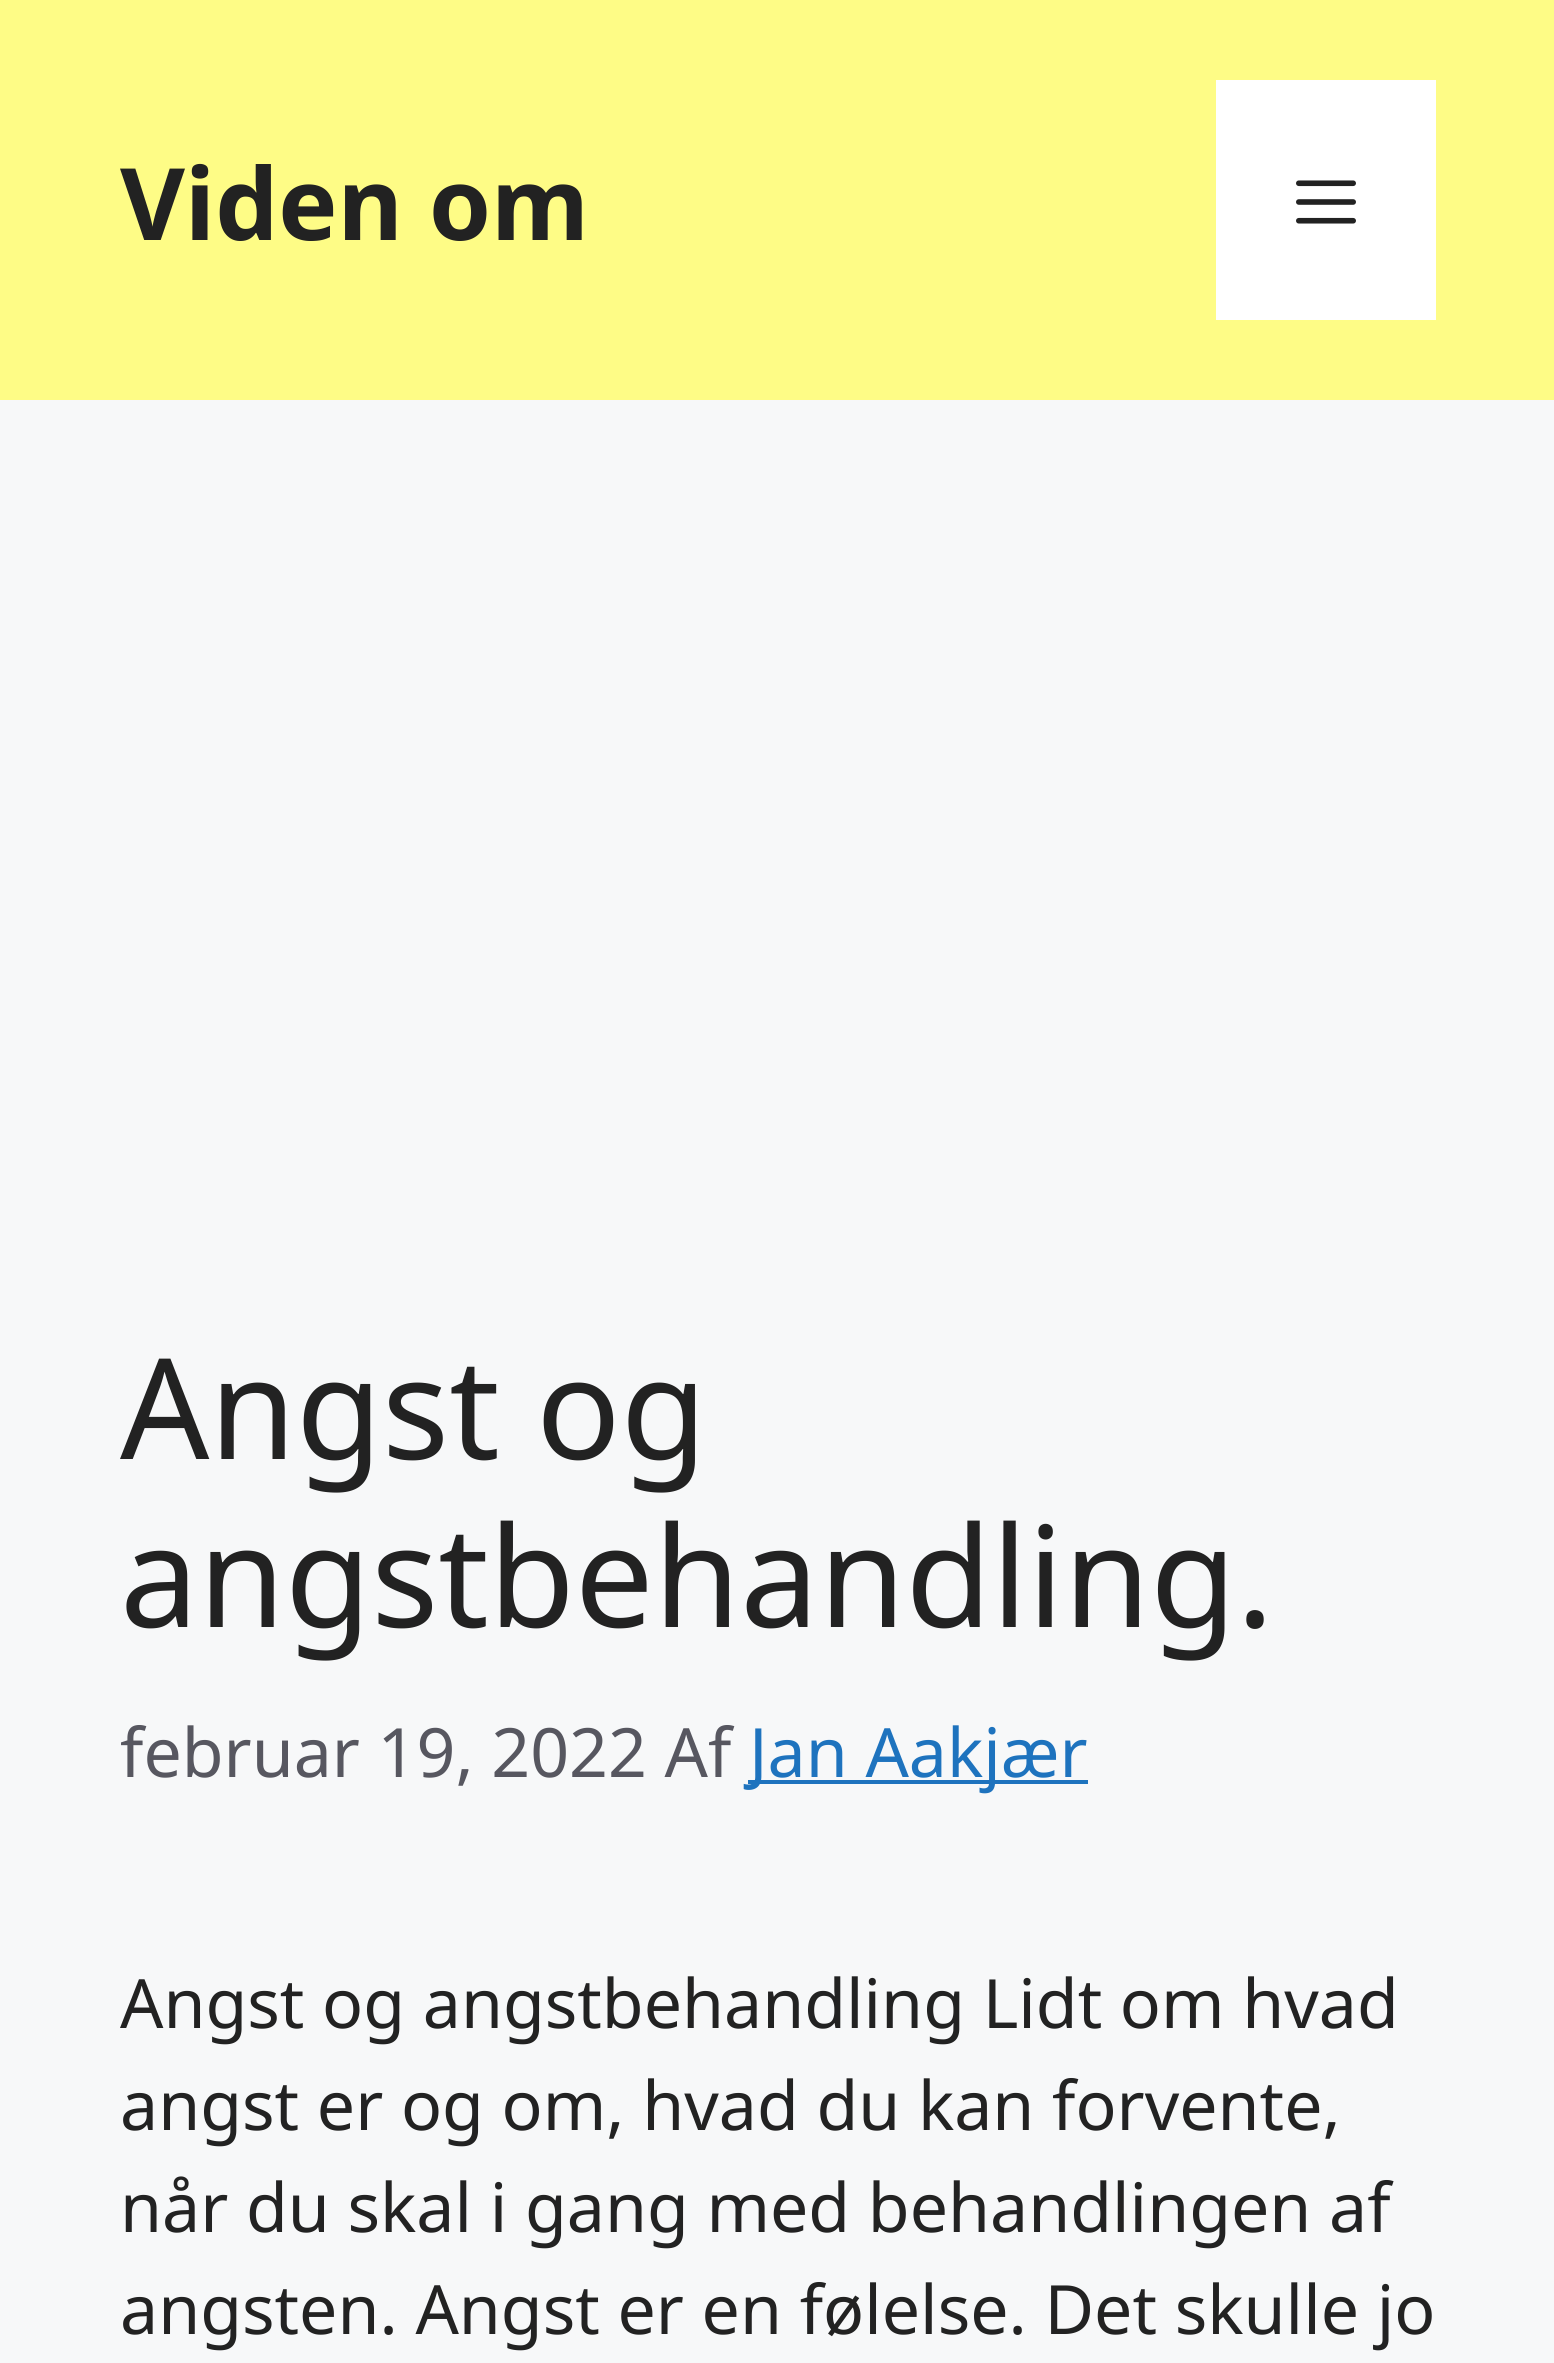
import math
import cairo


def use_color(cr, r, g, b):
  cr.set_source_rgb(r / 255, g / 255, b / 255)

def text(cr, x, y, s, family, size, color, bold=False, italic=False):
  cr.select_font_face(family, cairo.FONT_SLANT_ITALIC if italic else cairo.FONT_SLANT_NORMAL, cairo.FONT_WEIGHT_BOLD if bold else cairo.FONT_WEIGHT_NORMAL)
  cr.set_font_size(size)
  use_color(cr, *color)
  cr.move_to(x, y)
  cr.show_text(s)

def box(cr, x, y, w, h, *color):
  use_color(cr, *color)
  cr.rectangle(x, y, w, h)
  cr.fill()

def picture(cr, path, x, y, w, h):
  cr.save()
  cr.set_source_surface(cairo.ImageSurface.create_from_png(path), x, y)
  cr.rectangle(x, y, w, h)
  cr.fill()
  cr.restore()

def draw(cr):
  use_color(cr, 247, 248, 249)
  cr.paint()
  box(cr, 0, 0, 1554, 400, 254, 252, 134)
  box(cr, 1216, 80, 220, 240, 255, 255, 255)
  picture(cr, "img_01.png", 1296, 180, 60, 44)
  box(cr, 748, 1780, 340, 4, 30, 115, 190)
  text(cr, 120, 240, "Viden om", "Noto Sans", 100, (34, 34, 34), bold=True)
  text(cr, 120, 1459, "Angst og", "Noto Sans", 140, (34, 34, 34))
  text(cr, 120, 1627, "angstbehandling.", "Noto Sans", 140, (34, 34, 34))
  text(cr, 120, 1777, "februar 19, 2022 Af", "Noto Sans", 68, (87, 87, 96))
  text(cr, 749, 1777, "Jan Aakjær", "Noto Sans", 68, (30, 115, 190))
  text(cr, 120, 2028, "Angst og angstbehandling Lidt om hvad", "Noto Sans", 68, (34, 34, 34))
  text(cr, 120, 2130, "angst er og om, hvad du kan forvente,", "Noto Sans", 68, (34, 34, 34))
  text(cr, 120, 2232, "når du skal i gang med behandlingen af", "Noto Sans", 68, (34, 34, 34))
  text(cr, 120, 2334, "angsten. Angst er en følelse. Det skulle jo", "Noto Sans", 68, (34, 34, 34))


surface = cairo.ImageSurface(cairo.FORMAT_RGB24, 1554, 2363)
cr = cairo.Context(surface)
options = cairo.FontOptions()
options.set_hint_metrics(cairo.HINT_METRICS_OFF)
options.set_hint_style(cairo.HINT_STYLE_NONE)
cr.set_font_options(options)
cr.set_miter_limit(4)
draw(cr)
surface.write_to_png("out.png")
